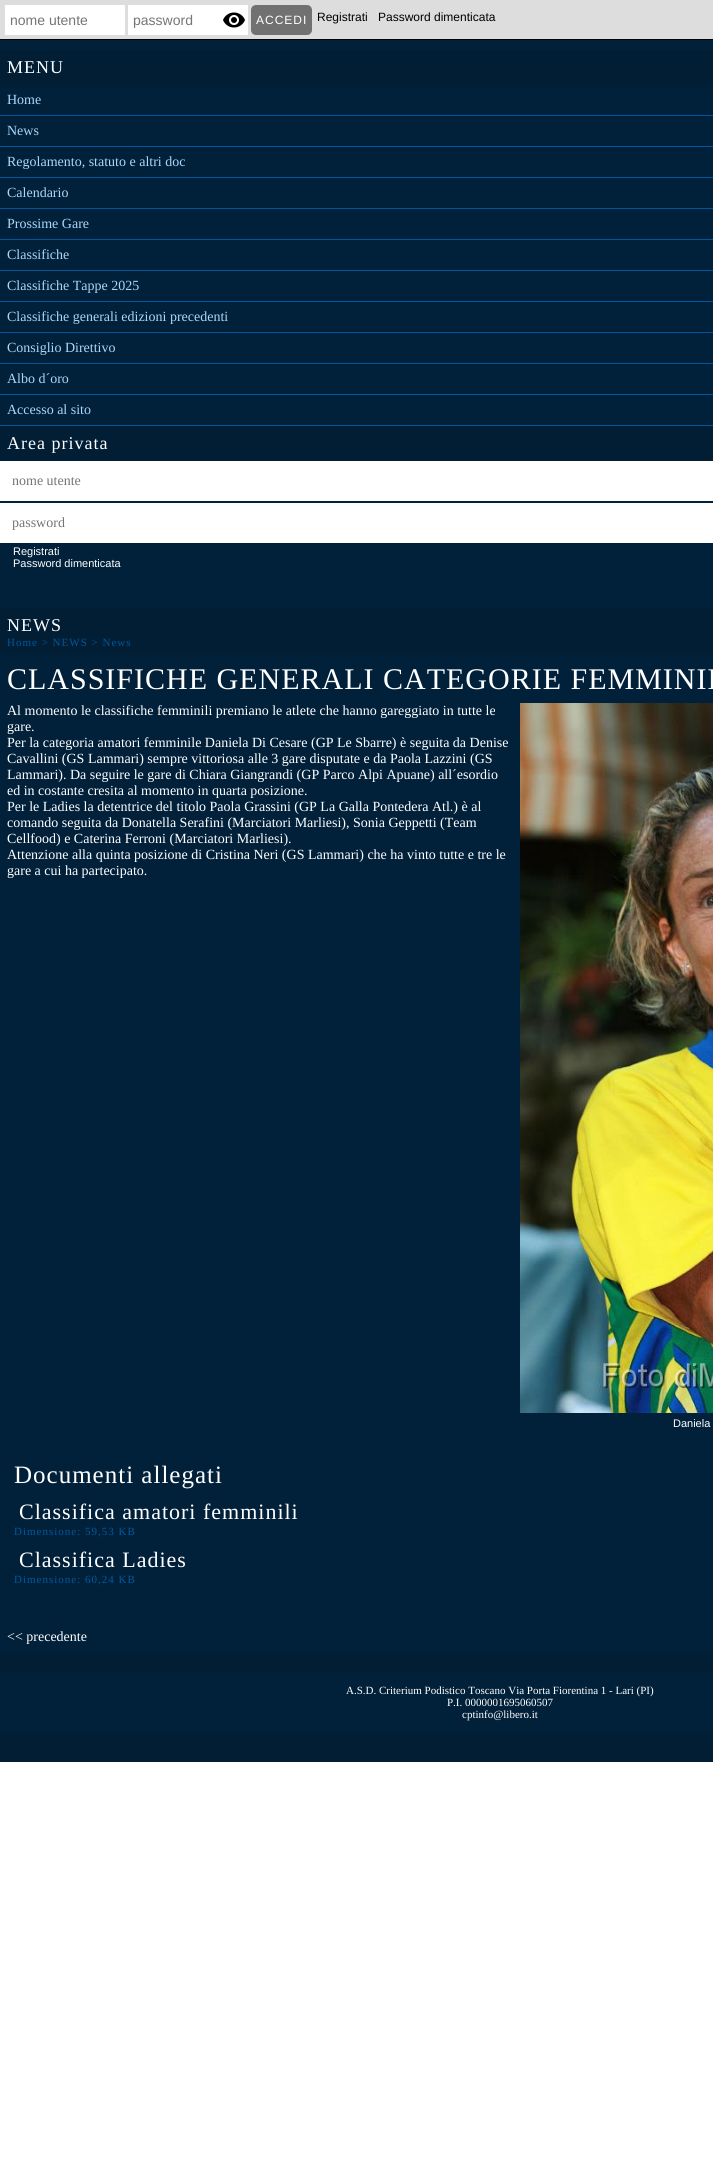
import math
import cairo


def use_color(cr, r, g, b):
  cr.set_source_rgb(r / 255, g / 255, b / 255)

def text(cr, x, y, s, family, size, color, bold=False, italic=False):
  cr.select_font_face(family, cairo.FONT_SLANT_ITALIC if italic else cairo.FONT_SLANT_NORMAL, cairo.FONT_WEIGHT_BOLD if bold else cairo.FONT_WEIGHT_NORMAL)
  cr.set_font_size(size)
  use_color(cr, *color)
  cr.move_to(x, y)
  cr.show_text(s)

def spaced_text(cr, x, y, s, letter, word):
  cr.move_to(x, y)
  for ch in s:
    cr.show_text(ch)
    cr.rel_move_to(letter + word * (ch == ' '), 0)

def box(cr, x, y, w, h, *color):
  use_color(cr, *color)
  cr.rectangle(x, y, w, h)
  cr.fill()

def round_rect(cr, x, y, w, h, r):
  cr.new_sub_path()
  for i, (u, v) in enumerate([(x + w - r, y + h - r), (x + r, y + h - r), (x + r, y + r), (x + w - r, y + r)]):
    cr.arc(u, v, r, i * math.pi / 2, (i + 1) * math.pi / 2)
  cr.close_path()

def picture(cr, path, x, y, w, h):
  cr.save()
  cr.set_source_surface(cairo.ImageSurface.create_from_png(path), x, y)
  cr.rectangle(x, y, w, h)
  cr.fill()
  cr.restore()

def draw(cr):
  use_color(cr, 255, 255, 255)
  cr.paint()
  box(cr, 0, 0, 713, 39, 221, 221, 221)
  box(cr, 0, 39, 713, 1, 0, 0, 0)
  box(cr, 5, 5, 120, 30, 255, 255, 255)
  box(cr, 128, 5, 120, 30, 255, 255, 255)
  picture(cr, "img_01.png", 223, 12, 22, 16)
  use_color(cr, 114, 113, 113)
  round_rect(cr, 251, 5, 61, 30, 5)
  cr.fill()
  box(cr, 0, 40, 713, 1612, 1, 33, 59)
  box(cr, 0, 50, 713, 35, 1, 30, 53)
  box(cr, 0, 115, 713, 1, 0, 87, 158)
  box(cr, 0, 146, 713, 1, 0, 87, 158)
  box(cr, 0, 177, 713, 1, 0, 87, 158)
  box(cr, 0, 208, 713, 1, 0, 87, 158)
  box(cr, 0, 239, 713, 1, 0, 87, 158)
  box(cr, 0, 270, 713, 1, 0, 87, 158)
  box(cr, 0, 301, 713, 1, 0, 87, 158)
  box(cr, 0, 332, 713, 1, 0, 87, 158)
  box(cr, 0, 363, 713, 1, 0, 87, 158)
  box(cr, 0, 394, 713, 1, 0, 87, 158)
  box(cr, 0, 425, 713, 1, 0, 87, 158)
  box(cr, 0, 426, 713, 35, 1, 30, 53)
  box(cr, 0, 461, 713, 40, 255, 255, 255)
  box(cr, 0, 503, 713, 40, 255, 255, 255)
  box(cr, 0, 608, 713, 47, 1, 30, 53)
  picture(cr, "img_02.png", 520, 703, 193, 710)
  box(cr, 0, 1652, 713, 110, 1, 30, 53)
  box(cr, 0, 1672, 713, 60, 1, 33, 59)
  text(cr, 10, 25, "nome utente", "Liberation Sans", 14, (117, 117, 117))
  text(cr, 133, 25, "password", "Liberation Sans", 14, (117, 117, 117))
  cr.set_font_size(12)
  use_color(cr, 255, 255, 255)
  spaced_text(cr, 256, 24, "ACCEDI", 1, 0)
  text(cr, 317, 21, "Registrati", "Liberation Sans", 12, (0, 0, 0))
  text(cr, 378, 21, "Password dimenticata", "Liberation Sans", 12, (0, 0, 0))
  cr.select_font_face("Liberation Serif")
  cr.set_font_size(18)
  use_color(cr, 255, 255, 255)
  spaced_text(cr, 7, 73, "MENU", 1, 0)
  text(cr, 7, 104, "Home", "Liberation Serif", 14, (171, 215, 250))
  text(cr, 7, 135, "News", "Liberation Serif", 14, (171, 215, 250))
  text(cr, 7, 166, "Regolamento, statuto e altri doc", "Liberation Serif", 14, (171, 215, 250))
  text(cr, 7, 197, "Calendario", "Liberation Serif", 14, (171, 215, 250))
  text(cr, 7, 228, "Prossime Gare", "Liberation Serif", 14, (171, 215, 250))
  text(cr, 7, 259, "Classifiche", "Liberation Serif", 14, (171, 215, 250))
  text(cr, 7, 290, "Classifiche Tappe 2025", "Liberation Serif", 14, (171, 215, 250))
  text(cr, 7, 321, "Classifiche generali edizioni precedenti", "Liberation Serif", 14, (171, 215, 250))
  text(cr, 7, 352, "Consiglio Direttivo", "Liberation Serif", 14, (171, 215, 250))
  text(cr, 7, 383, "Albo d´oro", "Liberation Serif", 14, (171, 215, 250))
  text(cr, 7, 414, "Accesso al sito", "Liberation Serif", 14, (171, 215, 250))
  cr.set_font_size(18)
  use_color(cr, 255, 255, 255)
  spaced_text(cr, 7, 449, "Area privata", 1, 0)
  text(cr, 12, 485, "nome utente", "Liberation Serif", 14, (117, 117, 117))
  text(cr, 12, 527, "password", "Liberation Serif", 14, (117, 117, 117))
  text(cr, 13, 555, "Registrati", "Liberation Sans", 11, (255, 255, 255))
  text(cr, 13, 567, "Password dimenticata", "Liberation Sans", 11, (255, 255, 255))
  cr.select_font_face("Liberation Serif")
  cr.set_font_size(18)
  spaced_text(cr, 7, 631, "NEWS", 1, 0)
  cr.set_font_size(11)
  use_color(cr, 0, 87, 156)
  spaced_text(cr, 7, 646, "Home > NEWS > News", 1, 0)
  cr.set_font_size(30)
  use_color(cr, 255, 255, 255)
  spaced_text(cr, 7, 689, "CLASSIFICHE GENERALI CATEGORIE FEMMINIL", 1, 0)
  text(cr, 7, 715, "Al momento le classifiche femminili premiano le atlete che hanno gareggiato in tutte le", "Liberation Serif", 14, (255, 255, 255))
  text(cr, 7, 731, "gare.", "Liberation Serif", 14, (255, 255, 255))
  text(cr, 7, 747, "Per la categoria amatori femminile Daniela Di Cesare (GP Le Sbarre) è seguita da Denise", "Liberation Serif", 14, (255, 255, 255))
  text(cr, 7, 763, "Cavallini (GS Lammari) sempre vittoriosa alle 3 gare disputate e da Paola Lazzini (GS", "Liberation Serif", 14, (255, 255, 255))
  text(cr, 7, 779, "Lammari). Da seguire le gare di Chiara Giangrandi (GP Parco Alpi Apuane) all´esordio", "Liberation Serif", 14, (255, 255, 255))
  text(cr, 7, 795, "ed in costante cresita al momento in quarta posizione.", "Liberation Serif", 14, (255, 255, 255))
  text(cr, 7, 811, "Per le Ladies la detentrice del titolo Paola Grassini (GP La Galla Pontedera Atl.) è al", "Liberation Serif", 14, (255, 255, 255))
  text(cr, 7, 827, "comando seguita da Donatella Serafini (Marciatori Marliesi), Sonia Geppetti (Team", "Liberation Serif", 14, (255, 255, 255))
  text(cr, 7, 843, "Cellfood) e Caterina Ferroni (Marciatori Marliesi).", "Liberation Serif", 14, (255, 255, 255))
  text(cr, 7, 859, "Attenzione alla quinta posizione di Cristina Neri (GS Lammari) che ha vinto tutte e tre le", "Liberation Serif", 14, (255, 255, 255))
  text(cr, 7, 875, "gare a cui ha partecipato.", "Liberation Serif", 14, (255, 255, 255))
  text(cr, 673, 1427, "Daniela", "Liberation Sans", 11, (255, 255, 255))
  cr.select_font_face("Liberation Serif")
  cr.set_font_size(25)
  spaced_text(cr, 14, 1483, "Documenti allegati", 1, 0)
  cr.set_font_size(22)
  spaced_text(cr, 19, 1519, "Classifica amatori femminili", 1, 0)
  cr.set_font_size(11)
  use_color(cr, 0, 87, 156)
  spaced_text(cr, 14, 1535, "Dimensione: 59,53 KB", 1, 0)
  cr.set_font_size(22)
  use_color(cr, 255, 255, 255)
  spaced_text(cr, 19, 1567, "Classifica Ladies", 1, 0)
  cr.set_font_size(11)
  use_color(cr, 0, 87, 156)
  spaced_text(cr, 14, 1583, "Dimensione: 60,24 KB", 1, 0)
  text(cr, 7, 1641, "<< precedente", "Liberation Serif", 14, (255, 255, 255))
  text(cr, 346, 1694, "A.S.D. Criterium Podistico Toscano Via Porta Fiorentina 1 - Lari (PI)", "Liberation Serif", 11, (255, 255, 255))
  text(cr, 447, 1706, "P.I. 0000001695060507", "Liberation Serif", 11, (255, 255, 255))
  text(cr, 462, 1718, "cptinfo@libero.it", "Liberation Serif", 11, (255, 255, 255))


surface = cairo.ImageSurface(cairo.FORMAT_RGB24, 713, 2181)
cr = cairo.Context(surface)
options = cairo.FontOptions()
options.set_hint_metrics(cairo.HINT_METRICS_OFF)
options.set_hint_style(cairo.HINT_STYLE_NONE)
cr.set_font_options(options)
cr.set_miter_limit(4)
draw(cr)
surface.write_to_png("out.png")
